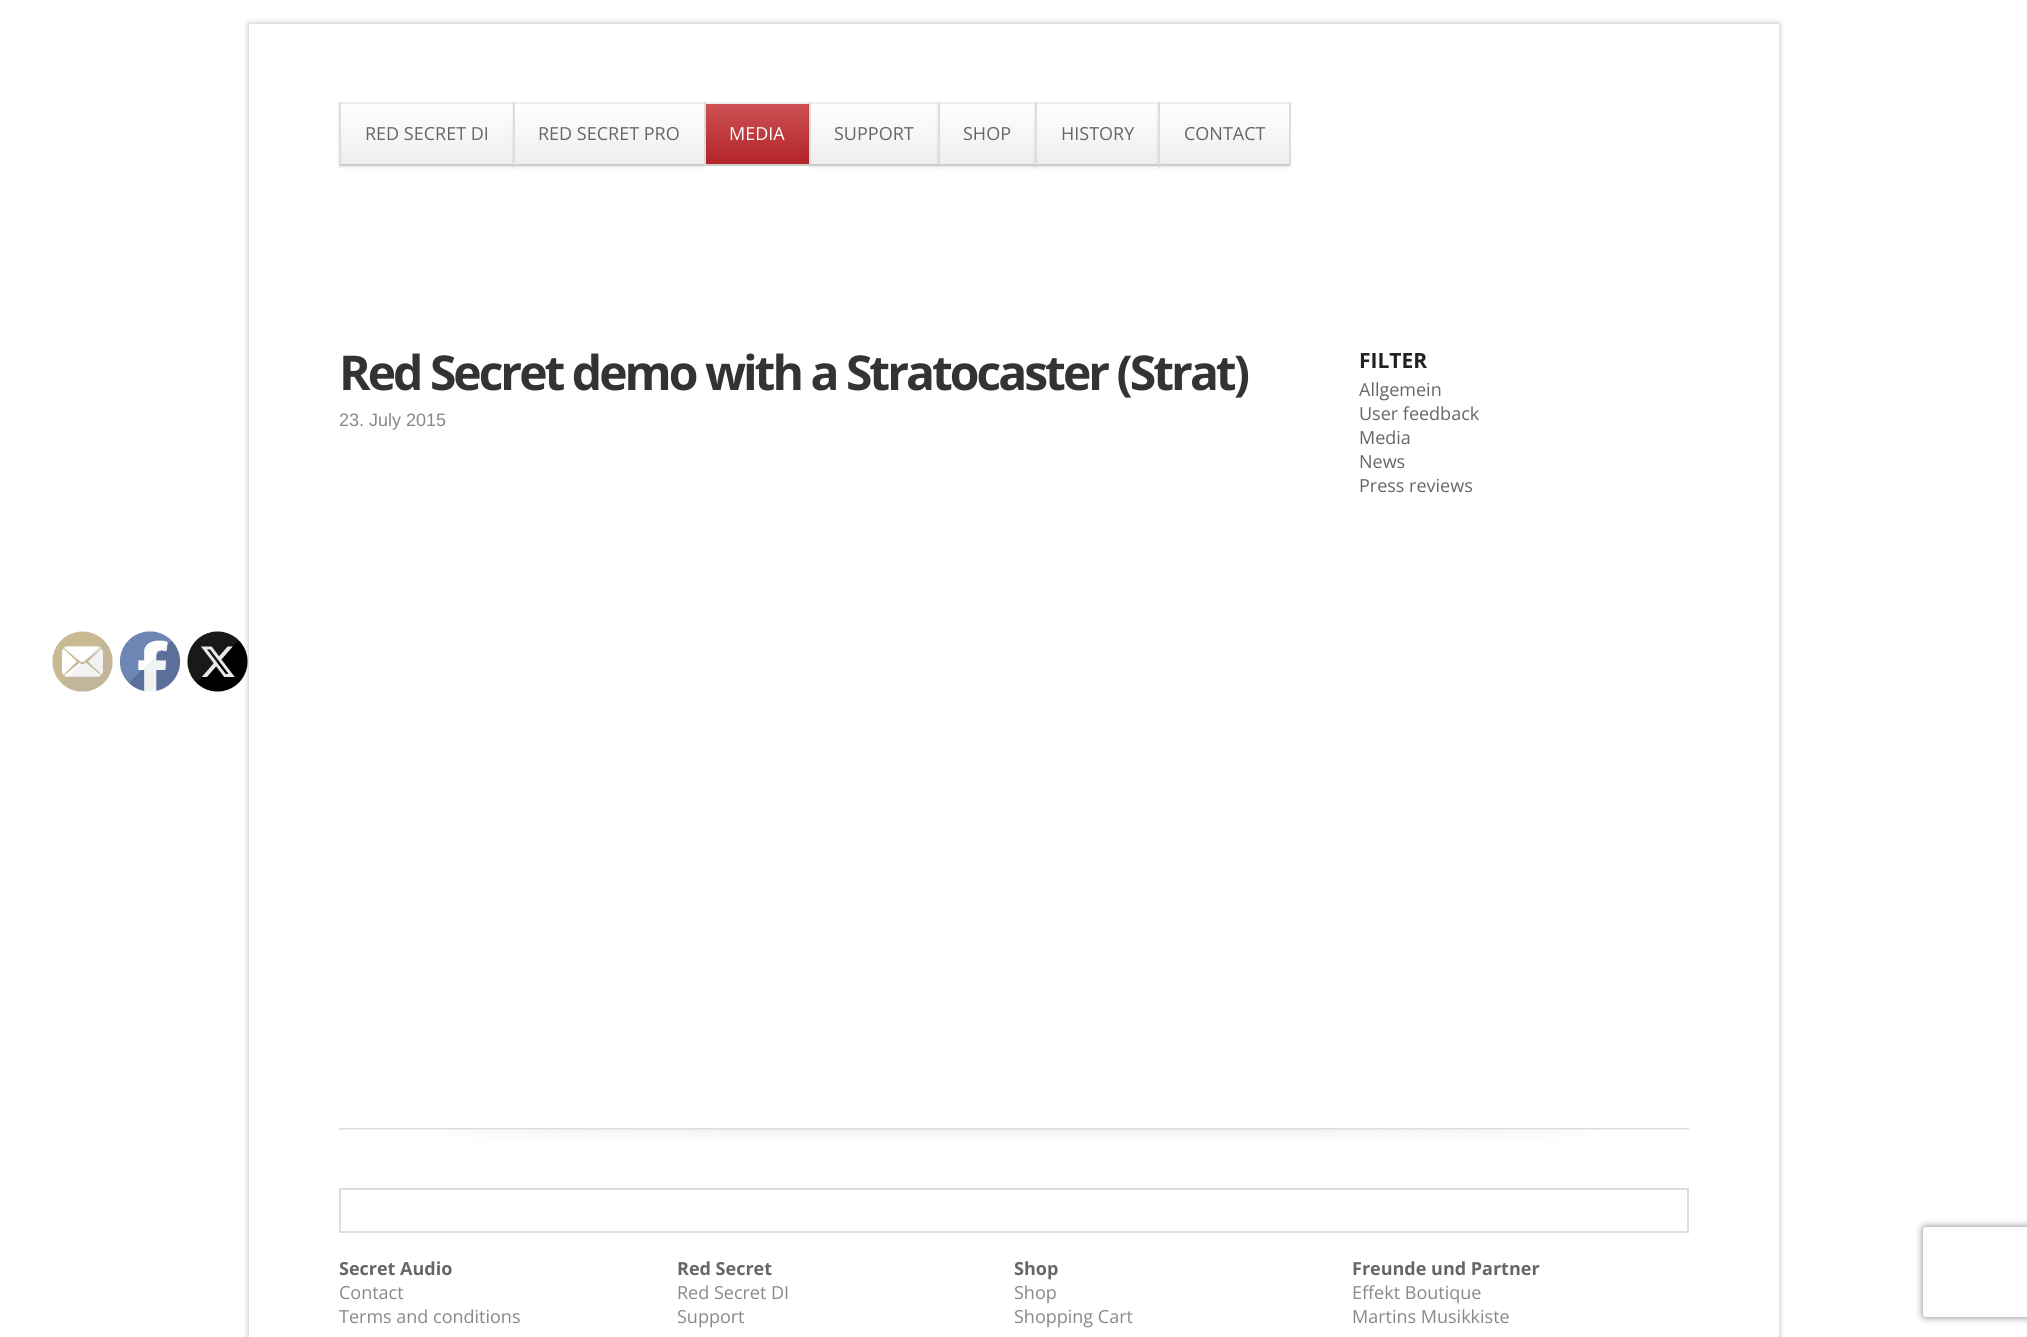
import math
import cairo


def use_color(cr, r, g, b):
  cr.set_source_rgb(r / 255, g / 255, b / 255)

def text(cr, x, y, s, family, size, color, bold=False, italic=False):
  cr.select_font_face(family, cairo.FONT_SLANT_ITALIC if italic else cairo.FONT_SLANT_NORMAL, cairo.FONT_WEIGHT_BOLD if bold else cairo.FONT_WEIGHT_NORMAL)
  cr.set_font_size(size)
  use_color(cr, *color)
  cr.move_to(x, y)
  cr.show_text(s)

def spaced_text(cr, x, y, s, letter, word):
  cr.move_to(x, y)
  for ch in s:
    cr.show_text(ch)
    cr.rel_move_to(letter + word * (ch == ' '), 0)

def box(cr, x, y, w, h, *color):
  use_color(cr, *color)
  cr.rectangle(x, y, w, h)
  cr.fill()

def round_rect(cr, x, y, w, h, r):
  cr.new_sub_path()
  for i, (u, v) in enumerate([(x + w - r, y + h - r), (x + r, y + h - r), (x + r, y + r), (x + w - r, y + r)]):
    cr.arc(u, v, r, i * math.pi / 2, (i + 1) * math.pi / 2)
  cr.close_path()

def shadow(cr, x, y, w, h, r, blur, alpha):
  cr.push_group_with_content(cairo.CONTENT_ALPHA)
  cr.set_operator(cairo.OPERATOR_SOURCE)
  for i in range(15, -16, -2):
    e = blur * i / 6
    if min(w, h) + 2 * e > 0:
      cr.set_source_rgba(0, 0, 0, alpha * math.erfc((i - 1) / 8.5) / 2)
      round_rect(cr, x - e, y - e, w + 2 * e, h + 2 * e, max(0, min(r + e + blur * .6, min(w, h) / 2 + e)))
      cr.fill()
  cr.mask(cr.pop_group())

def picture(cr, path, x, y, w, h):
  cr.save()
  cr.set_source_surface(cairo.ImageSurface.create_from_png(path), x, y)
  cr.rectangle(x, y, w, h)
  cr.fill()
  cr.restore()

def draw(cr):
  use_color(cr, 255, 255, 255)
  cr.paint()
  picture(cr, "img_01.png", 52, 631, 61, 61)
  picture(cr, "img_02.png", 120, 631, 60, 61)
  cr.save()
  cr.set_fill_rule(cairo.FILL_RULE_EVEN_ODD)
  cr.new_path()
  cr.move_to(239, 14)
  cr.line_to(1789, 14)
  cr.line_to(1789, 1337)
  cr.line_to(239, 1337)
  cr.close_path()
  cr.move_to(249, 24)
  cr.line_to(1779, 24)
  cr.line_to(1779, 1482)
  cr.line_to(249, 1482)
  cr.close_path()
  cr.clip()
  use_color(cr, 0, 0, 0)
  shadow(cr, 249, 24, 1530, 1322, 0, 3, 0.3)
  cr.restore()
  picture(cr, "img_03.png", 187, 631, 61, 61)
  use_color(cr, 0, 0, 0)
  shadow(cr, 339, 104, 176, 63, 0, 1.5, 0.1)
  gradient = cairo.LinearGradient(427, 43, 427, 104)
  gradient.add_color_stop_rgba(0, 1, 1, 1, 1)
  gradient.add_color_stop_rgba(1, 0.933, 0.933, 0.933, 1)
  cr.set_source(gradient)
  cr.rectangle(339, 102, 176, 2)
  cr.fill()
  gradient = cairo.LinearGradient(427, 104, 427, 164)
  gradient.add_color_stop_rgba(0, 1, 1, 1, 1)
  gradient.add_color_stop_rgba(1, 0.933, 0.933, 0.933, 1)
  cr.set_source(gradient)
  cr.rectangle(341, 104, 172, 60)
  cr.fill()
  box(cr, 339, 164, 176, 2, 204, 204, 204)
  box(cr, 339, 102, 2, 63, 221, 221, 221)
  use_color(cr, 0, 0, 0)
  shadow(cr, 513, 104, 192, 63, 0, 1.5, 0.1)
  gradient = cairo.LinearGradient(609, 43, 609, 104)
  gradient.add_color_stop_rgba(0, 1, 1, 1, 1)
  gradient.add_color_stop_rgba(1, 0.933, 0.933, 0.933, 1)
  cr.set_source(gradient)
  cr.rectangle(513, 102, 192, 2)
  cr.fill()
  gradient = cairo.LinearGradient(609, 104, 609, 164)
  gradient.add_color_stop_rgba(0, 1, 1, 1, 1)
  gradient.add_color_stop_rgba(1, 0.933, 0.933, 0.933, 1)
  cr.set_source(gradient)
  cr.rectangle(515, 104, 189, 60)
  cr.fill()
  box(cr, 513, 164, 297, 2, 204, 204, 204)
  box(cr, 513, 102, 2, 63, 221, 221, 221)
  gradient = cairo.LinearGradient(757, 104, 757, 164)
  gradient.add_color_stop_rgba(0, 0.8, 0.318, 0.329, 1)
  gradient.add_color_stop_rgba(1, 0.702, 0.141, 0.157, 1)
  cr.set_source(gradient)
  cr.rectangle(706, 104, 103, 60)
  cr.fill()
  box(cr, 704, 102, 106, 2, 238, 238, 238)
  box(cr, 704, 102, 2, 63, 221, 221, 221)
  use_color(cr, 0, 0, 0)
  shadow(cr, 809, 104, 130, 63, 0, 1.5, 0.1)
  gradient = cairo.LinearGradient(874, 43, 874, 104)
  gradient.add_color_stop_rgba(0, 1, 1, 1, 1)
  gradient.add_color_stop_rgba(1, 0.933, 0.933, 0.933, 1)
  cr.set_source(gradient)
  cr.rectangle(809, 102, 130, 2)
  cr.fill()
  gradient = cairo.LinearGradient(874, 104, 874, 164)
  gradient.add_color_stop_rgba(0, 1, 1, 1, 1)
  gradient.add_color_stop_rgba(1, 0.933, 0.933, 0.933, 1)
  cr.set_source(gradient)
  cr.rectangle(811, 104, 127, 60)
  cr.fill()
  box(cr, 809, 164, 130, 2, 204, 204, 204)
  box(cr, 809, 102, 2, 63, 221, 221, 221)
  use_color(cr, 0, 0, 0)
  shadow(cr, 938, 104, 99, 63, 0, 1.5, 0.1)
  gradient = cairo.LinearGradient(987, 43, 987, 104)
  gradient.add_color_stop_rgba(0, 1, 1, 1, 1)
  gradient.add_color_stop_rgba(1, 0.933, 0.933, 0.933, 1)
  cr.set_source(gradient)
  cr.rectangle(938, 102, 99, 2)
  cr.fill()
  gradient = cairo.LinearGradient(987, 104, 987, 164)
  gradient.add_color_stop_rgba(0, 1, 1, 1, 1)
  gradient.add_color_stop_rgba(1, 0.933, 0.933, 0.933, 1)
  cr.set_source(gradient)
  cr.rectangle(940, 104, 95, 60)
  cr.fill()
  box(cr, 938, 164, 99, 2, 204, 204, 204)
  box(cr, 938, 102, 2, 63, 221, 221, 221)
  use_color(cr, 0, 0, 0)
  shadow(cr, 1035, 104, 125, 63, 0, 1.5, 0.1)
  gradient = cairo.LinearGradient(1097, 43, 1097, 104)
  gradient.add_color_stop_rgba(0, 1, 1, 1, 1)
  gradient.add_color_stop_rgba(1, 0.933, 0.933, 0.933, 1)
  cr.set_source(gradient)
  cr.rectangle(1035, 102, 125, 2)
  cr.fill()
  gradient = cairo.LinearGradient(1097, 104, 1097, 164)
  gradient.add_color_stop_rgba(0, 1, 1, 1, 1)
  gradient.add_color_stop_rgba(1, 0.933, 0.933, 0.933, 1)
  cr.set_source(gradient)
  cr.rectangle(1037, 104, 121, 60)
  cr.fill()
  box(cr, 1035, 164, 125, 2, 204, 204, 204)
  box(cr, 1035, 102, 2, 63, 221, 221, 221)
  use_color(cr, 0, 0, 0)
  shadow(cr, 1158, 104, 132, 63, 0, 1.5, 0.1)
  gradient = cairo.LinearGradient(1224, 43, 1224, 104)
  gradient.add_color_stop_rgba(0, 1, 1, 1, 1)
  gradient.add_color_stop_rgba(1, 0.933, 0.933, 0.933, 1)
  cr.set_source(gradient)
  cr.rectangle(1158, 102, 132, 2)
  cr.fill()
  gradient = cairo.LinearGradient(1224, 104, 1224, 164)
  gradient.add_color_stop_rgba(0, 1, 1, 1, 1)
  gradient.add_color_stop_rgba(1, 0.933, 0.933, 0.933, 1)
  cr.set_source(gradient)
  cr.rectangle(1160, 104, 129, 60)
  cr.fill()
  box(cr, 1289, 102, 2, 63, 221, 221, 221)
  box(cr, 1158, 164, 132, 2, 204, 204, 204)
  box(cr, 1158, 102, 2, 63, 221, 221, 221)
  picture(cr, "img_04.png", 339, 1128, 1350, 13)
  cr.rectangle(340, 1189, 1348, 43)
  cr.stroke()
  cr.save()
  cr.set_fill_rule(cairo.FILL_RULE_EVEN_ODD)
  cr.new_path()
  cr.move_to(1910, 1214)
  cr.line_to(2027, 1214)
  cr.line_to(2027, 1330)
  cr.line_to(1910, 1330)
  cr.close_path()
  cr.move_to(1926, 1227)
  cr.line_to(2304, 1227)
  cr.curve_to(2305.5, 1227, 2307, 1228.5, 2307, 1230)
  cr.line_to(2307, 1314)
  cr.curve_to(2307, 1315.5, 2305.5, 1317, 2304, 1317)
  cr.line_to(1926, 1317)
  cr.curve_to(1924.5, 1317, 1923, 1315.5, 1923, 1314)
  cr.line_to(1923, 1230)
  cr.curve_to(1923, 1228.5, 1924.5, 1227, 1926, 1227)
  cr.close_path()
  cr.clip()
  use_color(cr, 128, 128, 128)
  shadow(cr, 1923, 1227, 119, 90, 3, 4, 1)
  cr.restore()
  text(cr, 365, 140, "RED SECRET DI", "Open Sans", 18, (102, 102, 102))
  text(cr, 538, 140, "RED SECRET PRO", "Open Sans", 18, (102, 102, 102))
  text(cr, 729, 140, "MEDIA", "Open Sans", 18, (255, 255, 255))
  text(cr, 834, 140, "SUPPORT", "Open Sans", 18, (102, 102, 102))
  text(cr, 963, 140, "SHOP", "Open Sans", 18, (102, 102, 102))
  text(cr, 1061, 140, "HISTORY", "Open Sans", 18, (102, 102, 102))
  text(cr, 1184, 140, "CONTACT", "Open Sans", 18, (102, 102, 102))
  cr.select_font_face("Open Sans", cairo.FONT_SLANT_NORMAL, cairo.FONT_WEIGHT_BOLD)
  cr.set_font_size(48)
  use_color(cr, 51, 51, 51)
  spaced_text(cr, 339, 390, "Red Secret demo with a Stratocaster (Strat)", -3, 0)
  text(cr, 339, 426, "23. July 2015", "Liberation Sans", 18, (136, 136, 136))
  text(cr, 1359, 368, "FILTER", "Open Sans", 21, (34, 34, 34), bold=True)
  text(cr, 1359, 396, "Allgemein", "Open Sans", 18, (102, 102, 102))
  text(cr, 1359, 420, "User feedback", "Open Sans", 18, (102, 102, 102))
  text(cr, 1359, 444, "Media", "Open Sans", 18, (102, 102, 102))
  text(cr, 1359, 468, "News", "Open Sans", 18, (102, 102, 102))
  text(cr, 1359, 492, "Press reviews", "Open Sans", 18, (102, 102, 102))
  text(cr, 339, 1275, "Secret Audio", "Open Sans", 18, (102, 102, 102), bold=True)
  text(cr, 339, 1299, "Contact", "Open Sans", 18, (136, 136, 136))
  text(cr, 339, 1323, "Terms and conditions", "Open Sans", 18, (136, 136, 136))
  text(cr, 677, 1275, "Red Secret", "Open Sans", 18, (102, 102, 102), bold=True)
  text(cr, 677, 1299, "Red Secret DI", "Open Sans", 18, (136, 136, 136))
  text(cr, 677, 1323, "Support", "Open Sans", 18, (136, 136, 136))
  text(cr, 1014, 1275, "Shop", "Open Sans", 18, (102, 102, 102), bold=True)
  text(cr, 1014, 1299, "Shop", "Open Sans", 18, (136, 136, 136))
  text(cr, 1014, 1323, "Shopping Cart", "Open Sans", 18, (136, 136, 136))
  text(cr, 1352, 1275, "Freunde und Partner", "Open Sans", 18, (102, 102, 102), bold=True)
  text(cr, 1352, 1299, "Effekt Boutique", "Open Sans", 18, (136, 136, 136))
  text(cr, 1352, 1323, "Martins Musikkiste", "Open Sans", 18, (136, 136, 136))


surface = cairo.ImageSurface(cairo.FORMAT_RGB24, 2027, 1337)
cr = cairo.Context(surface)
options = cairo.FontOptions()
options.set_hint_metrics(cairo.HINT_METRICS_OFF)
options.set_hint_style(cairo.HINT_STYLE_NONE)
cr.set_font_options(options)
cr.set_miter_limit(4)
draw(cr)
surface.write_to_png("out.png")
